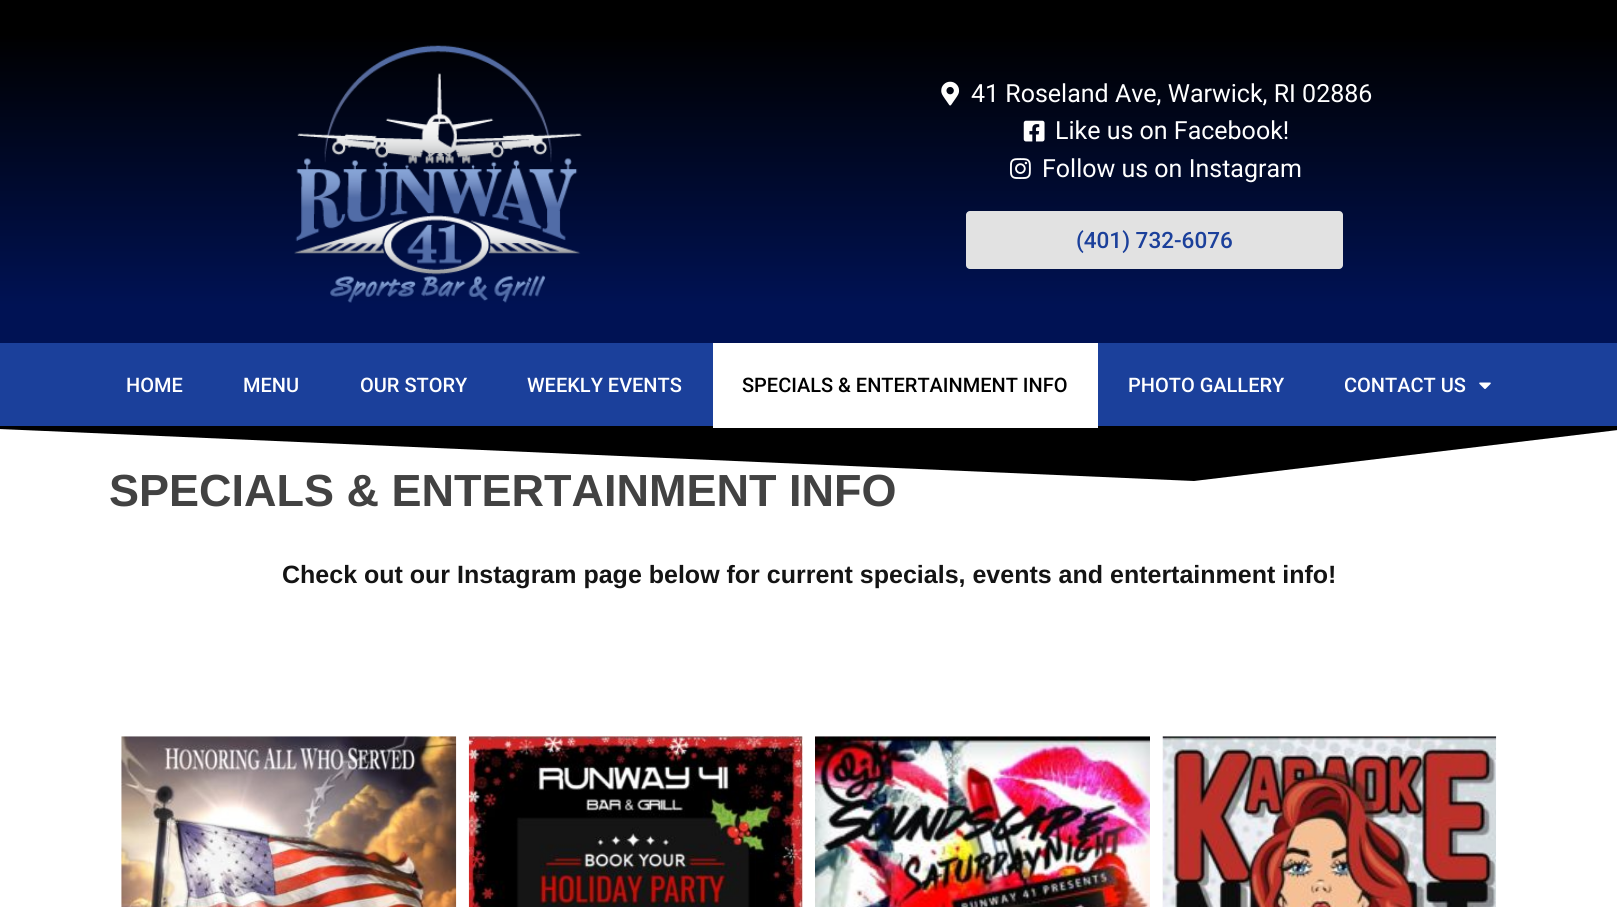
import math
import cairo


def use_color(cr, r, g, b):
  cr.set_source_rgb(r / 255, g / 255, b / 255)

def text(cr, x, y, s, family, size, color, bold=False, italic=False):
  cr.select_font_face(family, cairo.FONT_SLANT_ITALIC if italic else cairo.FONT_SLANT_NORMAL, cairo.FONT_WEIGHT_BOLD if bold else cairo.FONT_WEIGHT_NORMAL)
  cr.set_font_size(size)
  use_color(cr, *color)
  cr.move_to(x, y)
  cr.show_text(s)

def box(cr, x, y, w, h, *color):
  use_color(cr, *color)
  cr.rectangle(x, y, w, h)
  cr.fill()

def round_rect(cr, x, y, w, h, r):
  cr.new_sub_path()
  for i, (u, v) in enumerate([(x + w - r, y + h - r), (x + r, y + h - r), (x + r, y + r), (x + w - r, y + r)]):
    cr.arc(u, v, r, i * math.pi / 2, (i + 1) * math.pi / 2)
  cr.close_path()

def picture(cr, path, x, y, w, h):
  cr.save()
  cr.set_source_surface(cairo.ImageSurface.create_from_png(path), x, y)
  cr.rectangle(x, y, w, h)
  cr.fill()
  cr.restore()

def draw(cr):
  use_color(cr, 255, 255, 255)
  cr.paint()
  gradient = cairo.LinearGradient(809, 0, 809, 343)
  gradient.add_color_stop_rgba(0.1, 0, 0, 0, 1)
  gradient.add_color_stop_rgba(0.89, 0, 0.071, 0.329, 1)
  cr.set_source(gradient)
  cr.rectangle(0, 0, 1617, 343)
  cr.fill()
  picture(cr, "img_01.png", 294, 45, 288, 258)
  picture(cr, "img_02.png", 941, 81, 19, 25)
  picture(cr, "img_03.png", 1023, 120, 22, 22)
  picture(cr, "img_04.png", 1010, 158, 21, 21)
  use_color(cr, 226, 226, 226)
  round_rect(cr, 966, 211, 377, 58, 4)
  cr.fill()
  box(cr, 0, 343, 1617, 83, 27, 64, 155)
  use_color(cr, 0, 0, 0)
  cr.new_path()
  cr.move_to(1194, 481)
  cr.line_to(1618, 430)
  cr.line_to(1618, 426)
  cr.line_to(-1, 426)
  cr.line_to(-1, 429)
  cr.close_path()
  cr.fill()
  box(cr, 713, 343, 385, 85, 255, 255, 255)
  picture(cr, "img_05.png", 1479, 382, 12, 7)
  picture(cr, "img_06.png", 121, 736, 336, 171)
  picture(cr, "img_07.png", 468, 736, 335, 171)
  picture(cr, "img_08.png", 815, 736, 335, 171)
  picture(cr, "img_09.png", 1162, 736, 335, 171)
  text(cr, 971, 102, "41 Roseland Ave, Warwick, RI 02886", "Roboto", 25, (255, 255, 255))
  text(cr, 1055, 139, "Like us on Facebook!", "Roboto", 25, (255, 255, 255))
  text(cr, 1042, 177, "Follow us on Instagram", "Roboto", 25, (255, 255, 255))
  text(cr, 1076, 248, "(401) 732-6076", "Roboto Medium", 22.5, (27, 64, 155))
  text(cr, 126, 392, "HOME", "Roboto Medium", 20, (255, 255, 255))
  text(cr, 243, 392, "MENU", "Roboto Medium", 20, (255, 255, 255))
  text(cr, 360, 392, "OUR STORY", "Roboto Medium", 20, (255, 255, 255))
  text(cr, 527, 392, "WEEKLY EVENTS", "Roboto Medium", 20, (255, 255, 255))
  text(cr, 742, 392, "SPECIALS & ENTERTAINMENT INFO", "Roboto Medium", 20, (0, 0, 0))
  text(cr, 1128, 392, "PHOTO GALLERY", "Roboto Medium", 20, (255, 255, 255))
  text(cr, 1344, 392, "CONTACT US", "Roboto Medium", 20, (255, 255, 255))
  text(cr, 109, 506, "SPECIALS & ENTERTAINMENT INFO", "Liberation Sans", 45, (66, 66, 66), bold=True)
  text(cr, 282, 583, "Check out our Instagram page below for current specials, events and entertainment info!", "Liberation Sans", 25, (20, 20, 20), bold=True)


surface = cairo.ImageSurface(cairo.FORMAT_RGB24, 1617, 907)
cr = cairo.Context(surface)
options = cairo.FontOptions()
options.set_hint_metrics(cairo.HINT_METRICS_OFF)
options.set_hint_style(cairo.HINT_STYLE_NONE)
cr.set_font_options(options)
cr.set_miter_limit(4)
draw(cr)
surface.write_to_png("out.png")
